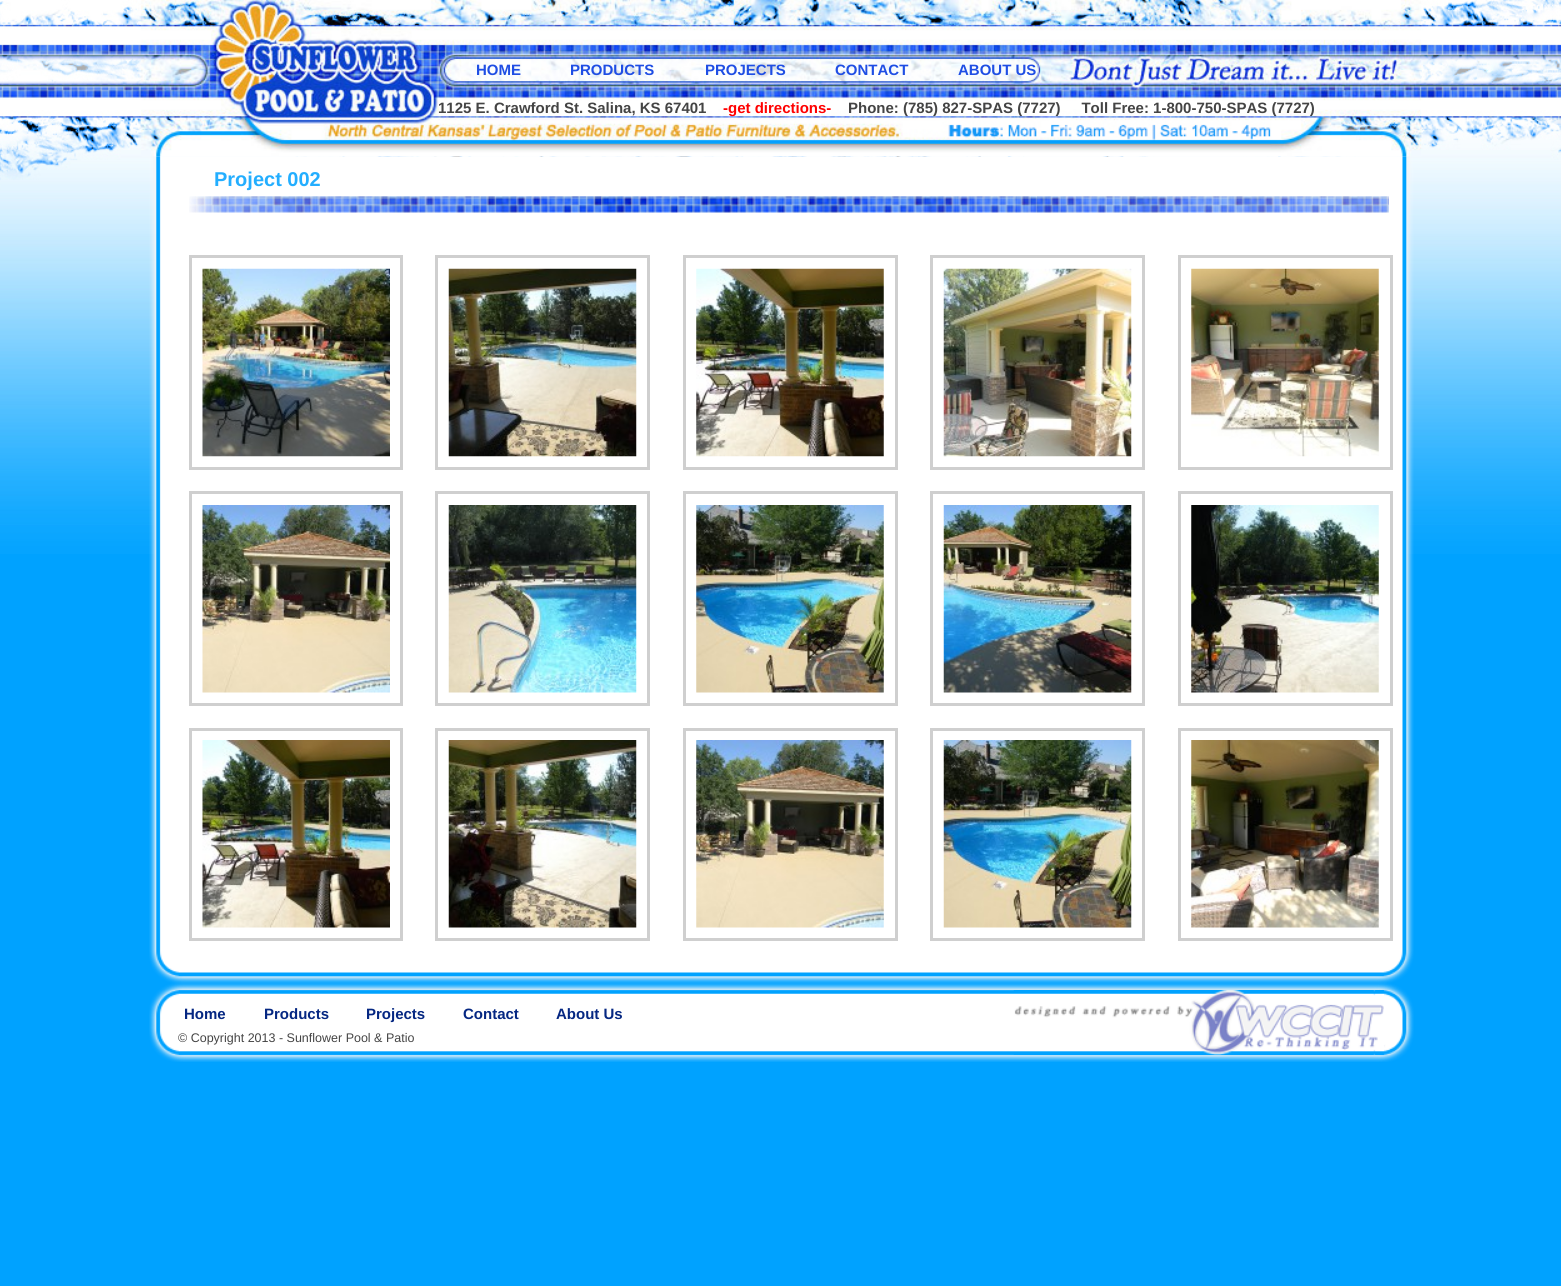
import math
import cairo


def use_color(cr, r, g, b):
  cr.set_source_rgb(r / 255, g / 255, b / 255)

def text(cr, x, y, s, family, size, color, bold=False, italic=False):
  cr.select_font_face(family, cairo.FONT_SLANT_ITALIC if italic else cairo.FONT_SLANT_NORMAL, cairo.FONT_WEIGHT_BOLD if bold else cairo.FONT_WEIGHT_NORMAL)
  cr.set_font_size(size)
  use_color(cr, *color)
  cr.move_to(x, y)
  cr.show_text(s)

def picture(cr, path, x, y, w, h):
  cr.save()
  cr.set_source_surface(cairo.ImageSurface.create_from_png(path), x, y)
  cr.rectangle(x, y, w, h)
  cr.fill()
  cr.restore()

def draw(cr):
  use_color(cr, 0, 162, 255)
  cr.paint()
  picture(cr, "img_01.png", 0, 0, 1561, 554)
  picture(cr, "img_03.png", 149, 156, 1265, 794)
  picture(cr, "img_02.png", 141, 0, 1281, 157)
  picture(cr, "img_04.png", 189, 196, 1200, 17)
  cr.rectangle(190.5, 256.5, 211, 212)
  use_color(cr, 207, 207, 207)
  cr.set_line_width(3)
  cr.stroke()
  picture(cr, "img_05.png", 202, 268, 188, 189)
  cr.rectangle(436.5, 256.5, 212, 212)
  cr.stroke()
  picture(cr, "img_06.png", 448, 268, 189, 189)
  cr.rectangle(684.5, 256.5, 212, 212)
  cr.stroke()
  picture(cr, "img_07.png", 696, 268, 188, 189)
  cr.rectangle(931.5, 256.5, 212, 212)
  cr.stroke()
  picture(cr, "img_08.png", 943, 268, 189, 189)
  cr.rectangle(1179.5, 256.5, 212, 212)
  cr.stroke()
  picture(cr, "img_09.png", 1191, 268, 188, 189)
  cr.rectangle(190.5, 492.5, 211, 212)
  cr.stroke()
  picture(cr, "img_10.png", 202, 505, 188, 188)
  cr.rectangle(436.5, 492.5, 212, 212)
  cr.stroke()
  picture(cr, "img_11.png", 448, 505, 189, 188)
  cr.rectangle(684.5, 492.5, 212, 212)
  cr.stroke()
  picture(cr, "img_12.png", 696, 505, 188, 188)
  cr.rectangle(931.5, 492.5, 212, 212)
  cr.stroke()
  picture(cr, "img_13.png", 943, 505, 189, 188)
  cr.rectangle(1179.5, 492.5, 212, 212)
  cr.stroke()
  picture(cr, "img_14.png", 1191, 505, 188, 188)
  cr.rectangle(190.5, 729.5, 211, 210)
  cr.stroke()
  picture(cr, "img_15.png", 202, 740, 188, 188)
  cr.rectangle(436.5, 729.5, 212, 210)
  cr.stroke()
  picture(cr, "img_16.png", 448, 740, 189, 188)
  cr.rectangle(684.5, 729.5, 212, 210)
  cr.stroke()
  picture(cr, "img_17.png", 696, 740, 188, 188)
  cr.rectangle(931.5, 729.5, 212, 210)
  cr.stroke()
  picture(cr, "img_18.png", 943, 740, 189, 188)
  cr.rectangle(1179.5, 729.5, 212, 210)
  cr.stroke()
  picture(cr, "img_19.png", 1191, 740, 188, 188)
  picture(cr, "img_20.png", 149, 950, 1265, 112)
  picture(cr, "img_21.png", 1013, 990, 371, 65)
  text(cr, 476, 75, "HOME", "Liberation Sans", 15, (31, 78, 228), bold=True)
  text(cr, 570, 75, "PRODUCTS", "Liberation Sans", 15, (31, 78, 228), bold=True)
  text(cr, 705, 75, "PROJECTS", "Liberation Sans", 15, (31, 78, 228), bold=True)
  text(cr, 835, 75, "CONTACT", "Liberation Sans", 15, (31, 78, 228), bold=True)
  text(cr, 958, 75, "ABOUT US", "Liberation Sans", 15, (31, 78, 228), bold=True)
  text(cr, 438, 113, "1125 E. Crawford St. Salina, KS 67401", "Liberation Sans", 15, (68, 68, 68), bold=True)
  text(cr, 723, 113, "-get directions-", "Liberation Sans", 15, (255, 0, 0), bold=True)
  text(cr, 848, 113, "Phone: (785) 827-SPAS (7727)     Toll Free: 1-800-750-SPAS (7727)", "Liberation Sans", 15, (68, 68, 68), bold=True)
  text(cr, 214, 186, "Project 002", "Liberation Sans", 20, (35, 174, 255), bold=True)
  text(cr, 184, 1019, "Home", "Liberation Sans", 15, (5, 39, 130), bold=True)
  text(cr, 264, 1019, "Products", "Liberation Sans", 15, (5, 39, 130), bold=True)
  text(cr, 366, 1019, "Projects", "Liberation Sans", 15, (5, 39, 130), bold=True)
  text(cr, 463, 1019, "Contact", "Liberation Sans", 15, (5, 39, 130), bold=True)
  text(cr, 556, 1019, "About Us", "Liberation Sans", 15, (5, 39, 130), bold=True)
  text(cr, 178, 1042, "© Copyright 2013 - Sunflower Pool & Patio", "Liberation Sans", 12.5, (68, 68, 68))


surface = cairo.ImageSurface(cairo.FORMAT_RGB24, 1561, 1286)
cr = cairo.Context(surface)
options = cairo.FontOptions()
options.set_hint_metrics(cairo.HINT_METRICS_OFF)
options.set_hint_style(cairo.HINT_STYLE_NONE)
cr.set_font_options(options)
cr.set_miter_limit(4)
draw(cr)
surface.write_to_png("out.png")
